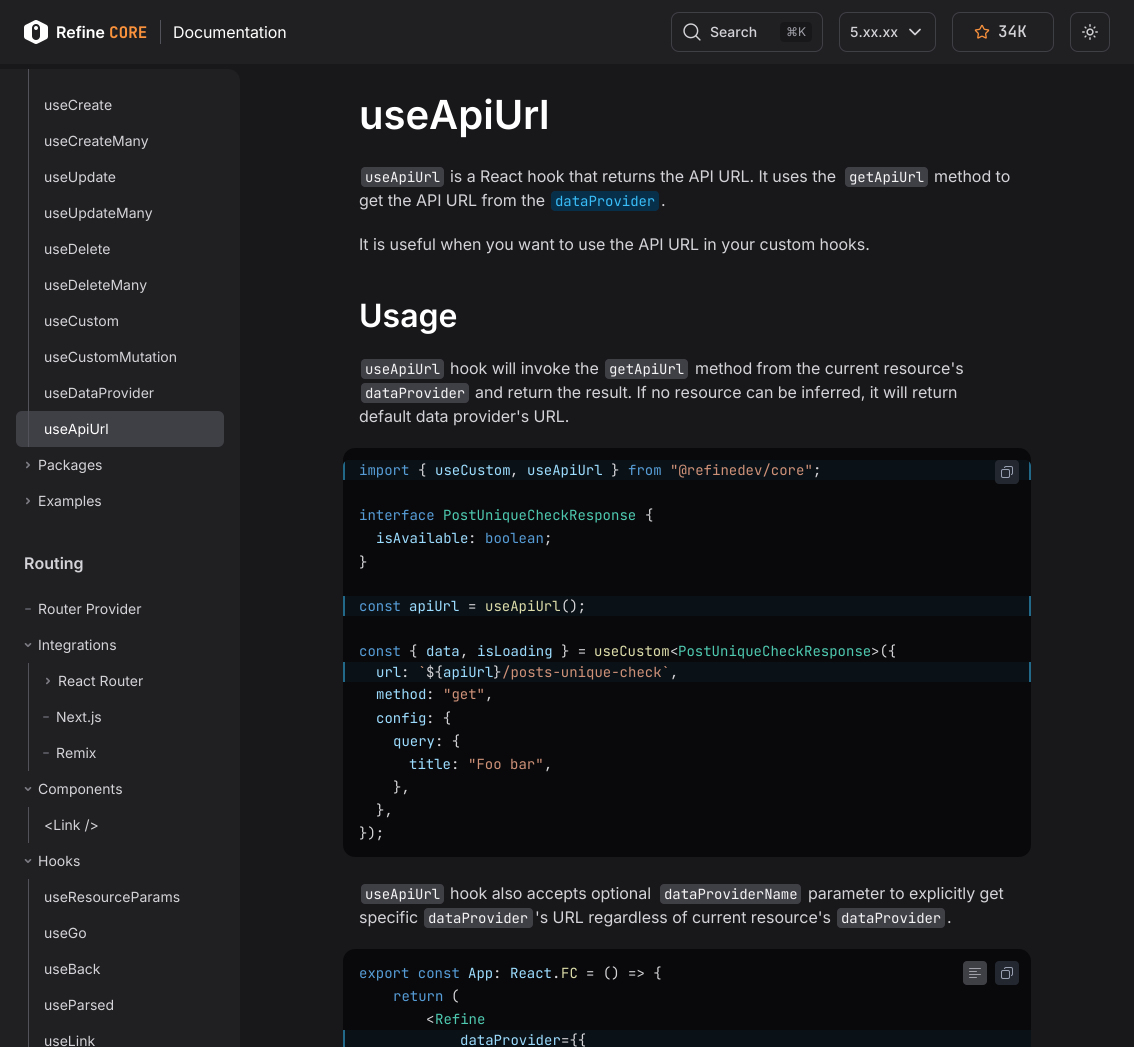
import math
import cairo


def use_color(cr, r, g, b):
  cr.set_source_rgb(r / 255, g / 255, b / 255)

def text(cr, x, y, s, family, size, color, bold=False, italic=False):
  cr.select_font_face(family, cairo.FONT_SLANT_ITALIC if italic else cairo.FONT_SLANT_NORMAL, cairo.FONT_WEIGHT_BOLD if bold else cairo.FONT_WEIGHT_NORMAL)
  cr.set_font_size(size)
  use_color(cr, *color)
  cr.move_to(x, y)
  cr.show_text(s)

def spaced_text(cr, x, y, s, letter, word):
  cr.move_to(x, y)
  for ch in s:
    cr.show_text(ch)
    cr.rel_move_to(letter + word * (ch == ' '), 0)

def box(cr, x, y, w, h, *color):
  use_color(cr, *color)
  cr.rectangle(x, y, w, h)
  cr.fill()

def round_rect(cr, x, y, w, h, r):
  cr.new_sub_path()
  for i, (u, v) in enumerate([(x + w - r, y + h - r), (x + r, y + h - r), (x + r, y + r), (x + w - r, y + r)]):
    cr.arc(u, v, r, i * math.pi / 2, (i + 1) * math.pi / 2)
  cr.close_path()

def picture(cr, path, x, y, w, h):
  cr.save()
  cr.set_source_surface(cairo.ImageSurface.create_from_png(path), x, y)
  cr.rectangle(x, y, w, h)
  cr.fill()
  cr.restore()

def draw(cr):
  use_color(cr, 24, 24, 27)
  cr.paint()
  box(cr, 0, 0, 1134, 64, 32, 32, 35)
  picture(cr, "img_01.png", 24, 20, 123, 24)
  box(cr, 160, 20, 1, 24, 82, 82, 91)
  round_rect(cr, 671.5, 12.5, 151, 39, 7.5)
  use_color(cr, 63, 63, 70)
  cr.set_line_width(1)
  cr.stroke()
  picture(cr, "img_02.png", 683, 23, 18, 18)
  use_color(cr, 24, 24, 27)
  round_rect(cr, 780, 22, 32, 20, 4)
  cr.fill()
  round_rect(cr, 839.5, 12.5, 96, 39, 7.5)
  use_color(cr, 63, 63, 70)
  cr.stroke()
  cr.new_path()
  cr.move_to(910, 29.5)
  cr.line_to(915, 34.5)
  cr.line_to(920, 29.5)
  use_color(cr, 212, 212, 216)
  cr.set_line_width(1.7)
  cr.set_line_cap(cairo.LINE_CAP_ROUND)
  cr.set_line_join(cairo.LINE_JOIN_ROUND)
  cr.stroke()
  round_rect(cr, 952.5, 12.5, 101, 39, 7.5)
  use_color(cr, 63, 63, 70)
  cr.set_line_width(1)
  cr.set_line_cap(cairo.LINE_CAP_BUTT)
  cr.set_line_join(cairo.LINE_JOIN_MITER)
  cr.stroke()
  picture(cr, "img_03.png", 974, 24, 16, 15)
  round_rect(cr, 1070.5, 12.5, 39, 39, 7.5)
  cr.stroke()
  picture(cr, "img_04.png", 1082, 24, 16, 16)
  use_color(cr, 32, 32, 35)
  cr.new_path()
  cr.move_to(0, 69)
  cr.line_to(228, 69)
  cr.curve_to(234.5, 69, 240, 74.5, 240, 81)
  cr.line_to(240, 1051)
  cr.line_to(0, 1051)
  cr.close_path()
  cr.fill()
  box(cr, 28, 69, 1, 342, 82, 82, 91)
  use_color(cr, 63, 63, 70)
  round_rect(cr, 16, 411, 208, 36, 6)
  cr.fill()
  box(cr, 28, 411, 1, 36, 82, 82, 91)
  picture(cr, "img_05.png", 26, 461, 4, 8)
  picture(cr, "img_05.png", 26, 497, 4, 8)
  round_rect(cr, 25, 608, 6, 2, 1)
  cr.fill()
  picture(cr, "img_06.png", 24, 643, 8, 4)
  picture(cr, "img_05.png", 46, 677, 4, 8)
  box(cr, 28, 663, 1, 108, 82, 82, 91)
  round_rect(cr, 43, 716, 6, 2, 1)
  cr.fill()
  round_rect(cr, 43, 752, 6, 2, 1)
  cr.fill()
  picture(cr, "img_06.png", 24, 787, 8, 4)
  box(cr, 28, 807, 1, 36, 82, 82, 91)
  picture(cr, "img_06.png", 24, 859, 8, 4)
  box(cr, 28, 879, 1, 168, 82, 82, 91)
  use_color(cr, 63, 63, 70)
  round_rect(cr, 361, 167, 83, 20, 4)
  cr.fill()
  round_rect(cr, 845, 167, 83, 20, 4)
  cr.fill()
  use_color(cr, 8, 47, 73)
  round_rect(cr, 551, 191, 108, 20, 4)
  cr.fill()
  use_color(cr, 63, 63, 70)
  round_rect(cr, 361, 359, 83, 20, 4)
  cr.fill()
  round_rect(cr, 605, 359, 83, 20, 4)
  cr.fill()
  round_rect(cr, 361, 383, 108, 20, 4)
  cr.fill()
  use_color(cr, 9, 9, 11)
  round_rect(cr, 343, 448, 688, 409, 12)
  cr.fill()
  use_color(cr, 11, 18, 23)
  cr.new_path()
  cr.move_to(349, 460)
  cr.line_to(1025, 460)
  cr.curve_to(1028.5, 460, 1031, 462.5, 1031, 466)
  cr.line_to(1031, 480)
  cr.line_to(343, 480)
  cr.line_to(343, 466)
  cr.curve_to(343, 462.5, 345.5, 460, 349, 460)
  cr.close_path()
  cr.fill()
  cr.save()
  round_rect(cr, 343, 460, 688, 397, 6)
  cr.clip()
  cr.set_source_rgba(0.22, 0.741, 0.973, 0.5)
  cr.rectangle(343, 460, 2, 20)
  cr.fill()
  cr.rectangle(1029, 460, 2, 20)
  cr.fill()
  cr.restore()
  box(cr, 345, 596, 684, 20, 11, 18, 23)
  box(cr, 343, 596, 2, 20, 34, 104, 136)
  box(cr, 1029, 596, 2, 20, 34, 104, 136)
  box(cr, 345, 662, 684, 20, 11, 18, 23)
  box(cr, 343, 662, 2, 20, 34, 104, 136)
  box(cr, 1029, 662, 2, 20, 34, 104, 136)
  use_color(cr, 35, 39, 47)
  round_rect(cr, 995, 460, 24, 24, 4)
  cr.fill()
  picture(cr, "img_07.png", 1001, 466, 12, 12)
  use_color(cr, 63, 63, 70)
  round_rect(cr, 361, 884, 83, 20, 4)
  cr.fill()
  round_rect(cr, 660, 884, 141, 20, 4)
  cr.fill()
  round_rect(cr, 424, 908, 109, 20, 4)
  cr.fill()
  round_rect(cr, 837, 908, 108, 20, 4)
  cr.fill()
  use_color(cr, 9, 9, 11)
  round_rect(cr, 343, 949, 688, 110, 12)
  cr.fill()
  box(cr, 345, 1030, 686, 17, 11, 18, 23)
  box(cr, 343, 1030, 2, 17, 34, 104, 136)
  use_color(cr, 63, 63, 70)
  round_rect(cr, 963, 961, 24, 24, 4)
  cr.fill()
  picture(cr, "img_08.png", 969, 968, 12, 10)
  use_color(cr, 35, 39, 47)
  round_rect(cr, 995, 961, 24, 24, 4)
  cr.fill()
  picture(cr, "img_07.png", 1001, 967, 12, 12)
  cr.select_font_face("Inter")
  cr.set_font_size(16)
  use_color(cr, 255, 255, 255)
  spaced_text(cr, 173, 38, "Documentation", -0.1, 0)
  text(cr, 710, 37, "Search", "Inter Medium", 14, (212, 212, 216))
  text(cr, 786, 36, "⌘K", "Inter", 12, (161, 161, 170))
  text(cr, 850, 37, "5.xx.xx", "Inter Medium", 14, (212, 212, 216))
  text(cr, 998, 37, "34K", "JetBrains Mono Medium", 16, (212, 212, 216))
  text(cr, 44, 110, "useCreate", "Inter", 14, (212, 212, 216))
  text(cr, 44, 146, "useCreateMany", "Inter", 14, (212, 212, 216))
  text(cr, 44, 182, "useUpdate", "Inter", 14, (212, 212, 216))
  text(cr, 44, 218, "useUpdateMany", "Inter", 14, (212, 212, 216))
  text(cr, 44, 254, "useDelete", "Inter", 14, (212, 212, 216))
  text(cr, 44, 290, "useDeleteMany", "Inter", 14, (212, 212, 216))
  text(cr, 44, 326, "useCustom", "Inter", 14, (212, 212, 216))
  text(cr, 44, 362, "useCustomMutation", "Inter", 14, (212, 212, 216))
  text(cr, 44, 398, "useDataProvider", "Inter", 14, (212, 212, 216))
  text(cr, 44, 434, "useApiUrl", "Inter", 14, (255, 255, 255))
  text(cr, 38, 470, "Packages", "Inter", 14, (212, 212, 216))
  text(cr, 38, 506, "Examples", "Inter", 14, (212, 212, 216))
  text(cr, 24, 569, "Routing", "Inter SemiBold", 16, (212, 212, 216))
  text(cr, 38, 614, "Router Provider", "Inter", 14, (212, 212, 216))
  text(cr, 38, 650, "Integrations", "Inter", 14, (212, 212, 216))
  text(cr, 58, 686, "React Router", "Inter", 14, (212, 212, 216))
  text(cr, 56, 722, "Next.js", "Inter", 14, (212, 212, 216))
  text(cr, 56, 758, "Remix", "Inter", 14, (212, 212, 216))
  text(cr, 38, 794, "Components", "Inter", 14, (212, 212, 216))
  text(cr, 44, 830, "<Link />", "Inter", 14, (212, 212, 216))
  text(cr, 38, 866, "Hooks", "Inter", 14, (212, 212, 216))
  text(cr, 44, 902, "useResourceParams", "Inter", 14, (212, 212, 216))
  text(cr, 44, 938, "useGo", "Inter", 14, (212, 212, 216))
  text(cr, 44, 974, "useBack", "Inter", 14, (212, 212, 216))
  text(cr, 44, 1010, "useParsed", "Inter", 14, (212, 212, 216))
  text(cr, 44, 1046, "useLink", "Inter", 14, (212, 212, 216))
  text(cr, 359, 129, "useApiUrl", "Inter SemiBold", 40, (255, 255, 255))
  cr.select_font_face("JetBrains Mono")
  cr.set_font_size(14)
  use_color(cr, 244, 244, 245)
  spaced_text(cr, 365, 182, "useApiUrl", -0.05, 0)
  cr.select_font_face("Inter")
  cr.set_font_size(16)
  use_color(cr, 212, 212, 216)
  spaced_text(cr, 450, 182, "is a React hook that returns the API URL. It uses the", -0.05, 0)
  cr.select_font_face("JetBrains Mono")
  cr.set_font_size(14)
  use_color(cr, 244, 244, 245)
  spaced_text(cr, 849, 182, "getApiUrl", -0.05, 0)
  cr.select_font_face("Inter")
  cr.set_font_size(16)
  use_color(cr, 212, 212, 216)
  spaced_text(cr, 934, 182, "method to", -0.05, 0)
  spaced_text(cr, 359, 206, "get the API URL from the", -0.05, 0)
  cr.select_font_face("JetBrains Mono")
  cr.set_font_size(14)
  use_color(cr, 56, 189, 248)
  spaced_text(cr, 555, 206, "dataProvider", -0.05, 0)
  cr.select_font_face("Inter")
  cr.set_font_size(16)
  use_color(cr, 212, 212, 216)
  spaced_text(cr, 661, 206, ".", -0.05, 0)
  spaced_text(cr, 359, 250, "It is useful when you want to use the API URL in your custom hooks.", -0.05, 0)
  text(cr, 359, 327, "Usage", "Inter SemiBold", 32, (255, 255, 255))
  cr.select_font_face("JetBrains Mono")
  cr.set_font_size(14)
  use_color(cr, 244, 244, 245)
  spaced_text(cr, 365, 374, "useApiUrl", -0.05, 0)
  cr.select_font_face("Inter")
  cr.set_font_size(16)
  use_color(cr, 212, 212, 216)
  spaced_text(cr, 450, 374, "hook will invoke the", -0.05, 0)
  cr.select_font_face("JetBrains Mono")
  cr.set_font_size(14)
  use_color(cr, 244, 244, 245)
  spaced_text(cr, 609, 374, "getApiUrl", -0.05, 0)
  cr.select_font_face("Inter")
  cr.set_font_size(16)
  use_color(cr, 212, 212, 216)
  spaced_text(cr, 695, 374, "method from the current resource's", -0.05, 0)
  cr.select_font_face("JetBrains Mono")
  cr.set_font_size(14)
  use_color(cr, 244, 244, 245)
  spaced_text(cr, 365, 398, "dataProvider", -0.05, 0)
  cr.select_font_face("Inter")
  cr.set_font_size(16)
  use_color(cr, 212, 212, 216)
  spaced_text(cr, 475, 398, "and return the result. If no resource can be inferred, it will return", -0.05, 0)
  spaced_text(cr, 359, 422, "default data provider's URL.", -0.05, 0)
  text(cr, 359, 475, "import", "JetBrains Mono", 14, (86, 156, 214))
  text(cr, 418, 475, "{", "JetBrains Mono", 14, (212, 212, 216))
  text(cr, 435, 475, "useCustom", "JetBrains Mono", 14, (156, 220, 254))
  text(cr, 510, 475, ",", "JetBrains Mono", 14, (212, 212, 216))
  text(cr, 527, 475, "useApiUrl", "JetBrains Mono", 14, (156, 220, 254))
  text(cr, 611, 475, "}", "JetBrains Mono", 14, (212, 212, 216))
  text(cr, 628, 475, "from", "JetBrains Mono", 14, (86, 156, 214))
  text(cr, 670, 475, "\"@refinedev/core\"", "JetBrains Mono", 14, (206, 145, 120))
  text(cr, 813, 475, ";", "JetBrains Mono", 14, (212, 212, 216))
  text(cr, 359, 520, "interface", "JetBrains Mono", 14, (86, 156, 214))
  text(cr, 443, 520, "PostUniqueCheckResponse", "JetBrains Mono", 14, (78, 201, 176))
  text(cr, 645, 520, "{", "JetBrains Mono", 14, (212, 212, 216))
  text(cr, 376, 543, "isAvailable", "JetBrains Mono", 14, (156, 220, 254))
  text(cr, 468, 543, ":", "JetBrains Mono", 14, (212, 212, 216))
  text(cr, 485, 543, "boolean", "JetBrains Mono", 14, (86, 156, 214))
  text(cr, 544, 543, ";", "JetBrains Mono", 14, (212, 212, 216))
  text(cr, 359, 567, "}", "JetBrains Mono", 14, (212, 212, 216))
  text(cr, 359, 611, "const", "JetBrains Mono", 14, (86, 156, 214))
  text(cr, 409, 611, "apiUrl", "JetBrains Mono", 14, (156, 220, 254))
  text(cr, 468, 611, "=", "JetBrains Mono", 14, (212, 212, 216))
  text(cr, 485, 611, "useApiUrl", "JetBrains Mono", 14, (220, 220, 170))
  text(cr, 561, 611, "();", "JetBrains Mono", 14, (212, 212, 216))
  text(cr, 359, 656, "const", "JetBrains Mono", 14, (86, 156, 214))
  text(cr, 409, 656, "{", "JetBrains Mono", 14, (212, 212, 216))
  text(cr, 426, 656, "data", "JetBrains Mono", 14, (156, 220, 254))
  text(cr, 460, 656, ",", "JetBrains Mono", 14, (212, 212, 216))
  text(cr, 477, 656, "isLoading", "JetBrains Mono", 14, (156, 220, 254))
  text(cr, 561, 656, "} =", "JetBrains Mono", 14, (212, 212, 216))
  text(cr, 594, 656, "useCustom", "JetBrains Mono", 14, (220, 220, 170))
  text(cr, 670, 656, "<", "JetBrains Mono", 14, (212, 212, 216))
  text(cr, 678, 656, "PostUniqueCheckResponse", "JetBrains Mono", 14, (78, 201, 176))
  text(cr, 871, 656, ">({", "JetBrains Mono", 14, (212, 212, 216))
  text(cr, 376, 677, "url", "JetBrains Mono", 14, (156, 220, 254))
  text(cr, 401, 677, ":", "JetBrains Mono", 14, (212, 212, 216))
  text(cr, 418, 677, "`", "JetBrains Mono", 14, (206, 145, 120))
  text(cr, 426, 677, "${", "JetBrains Mono", 14, (212, 212, 216))
  text(cr, 443, 677, "apiUrl", "JetBrains Mono", 14, (156, 220, 254))
  text(cr, 493, 677, "}", "JetBrains Mono", 14, (212, 212, 216))
  text(cr, 502, 677, "/posts-unique-check`", "JetBrains Mono", 14, (206, 145, 120))
  text(cr, 670, 677, ",", "JetBrains Mono", 14, (212, 212, 216))
  text(cr, 376, 699, "method", "JetBrains Mono", 14, (156, 220, 254))
  text(cr, 426, 699, ":", "JetBrains Mono", 14, (212, 212, 216))
  text(cr, 443, 699, "\"get\"", "JetBrains Mono", 14, (206, 145, 120))
  text(cr, 485, 699, ",", "JetBrains Mono", 14, (212, 212, 216))
  text(cr, 376, 723, "config", "JetBrains Mono", 14, (156, 220, 254))
  text(cr, 426, 723, ": {", "JetBrains Mono", 14, (212, 212, 216))
  text(cr, 393, 746, "query", "JetBrains Mono", 14, (156, 220, 254))
  text(cr, 435, 746, ": {", "JetBrains Mono", 14, (212, 212, 216))
  text(cr, 409, 769, "title", "JetBrains Mono", 14, (156, 220, 254))
  text(cr, 451, 769, ":", "JetBrains Mono", 14, (212, 212, 216))
  text(cr, 468, 769, "\"Foo bar\"", "JetBrains Mono", 14, (206, 145, 120))
  text(cr, 544, 769, ",", "JetBrains Mono", 14, (212, 212, 216))
  text(cr, 393, 792, "},", "JetBrains Mono", 14, (212, 212, 216))
  text(cr, 376, 815, "},", "JetBrains Mono", 14, (212, 212, 216))
  text(cr, 359, 838, "});", "JetBrains Mono", 14, (212, 212, 216))
  use_color(cr, 244, 244, 245)
  spaced_text(cr, 365, 899, "useApiUrl", -0.05, 0)
  cr.select_font_face("Inter")
  cr.set_font_size(16)
  use_color(cr, 212, 212, 216)
  spaced_text(cr, 450, 899, "hook also accepts optional", -0.05, 0)
  cr.select_font_face("JetBrains Mono")
  cr.set_font_size(14)
  use_color(cr, 244, 244, 245)
  spaced_text(cr, 664, 899, "dataProviderName", -0.05, 0)
  cr.select_font_face("Inter")
  cr.set_font_size(16)
  use_color(cr, 212, 212, 216)
  spaced_text(cr, 808, 899, "parameter to explicitly get", -0.05, 0)
  spaced_text(cr, 359, 923, "specific", -0.05, 0)
  cr.select_font_face("JetBrains Mono")
  cr.set_font_size(14)
  use_color(cr, 244, 244, 245)
  spaced_text(cr, 428, 923, "dataProvider", -0.05, 0)
  cr.select_font_face("Inter")
  cr.set_font_size(16)
  use_color(cr, 212, 212, 216)
  spaced_text(cr, 535, 923, "'s URL regardless of current resource's", -0.05, 0)
  cr.select_font_face("JetBrains Mono")
  cr.set_font_size(14)
  use_color(cr, 244, 244, 245)
  spaced_text(cr, 841, 923, "dataProvider", -0.05, 0)
  cr.select_font_face("Inter")
  cr.set_font_size(16)
  use_color(cr, 212, 212, 216)
  spaced_text(cr, 947, 923, ".", -0.05, 0)
  text(cr, 359, 978, "export const", "JetBrains Mono", 14, (86, 156, 214))
  text(cr, 468, 978, "App", "JetBrains Mono", 14, (156, 220, 254))
  text(cr, 493, 978, ":", "JetBrains Mono", 14, (212, 212, 216))
  text(cr, 510, 978, "React", "JetBrains Mono", 14, (156, 220, 254))
  text(cr, 552, 978, ".", "JetBrains Mono", 14, (212, 212, 216))
  text(cr, 561, 978, "FC", "JetBrains Mono", 14, (220, 220, 170))
  text(cr, 586, 978, "= () => {", "JetBrains Mono", 14, (212, 212, 216))
  text(cr, 393, 1001, "return", "JetBrains Mono", 14, (86, 156, 214))
  text(cr, 451, 1001, "(", "JetBrains Mono", 14, (212, 212, 216))
  text(cr, 426, 1024, "<", "JetBrains Mono", 14, (212, 212, 216))
  text(cr, 435, 1024, "Refine", "JetBrains Mono", 14, (78, 201, 176))
  text(cr, 460, 1045, "dataProvider", "JetBrains Mono", 14, (156, 220, 254))
  text(cr, 561, 1045, "={{", "JetBrains Mono", 14, (212, 212, 216))


surface = cairo.ImageSurface(cairo.FORMAT_RGB24, 1134, 1047)
cr = cairo.Context(surface)
options = cairo.FontOptions()
options.set_hint_metrics(cairo.HINT_METRICS_OFF)
options.set_hint_style(cairo.HINT_STYLE_NONE)
cr.set_font_options(options)
cr.set_miter_limit(4)
draw(cr)
surface.write_to_png("out.png")
